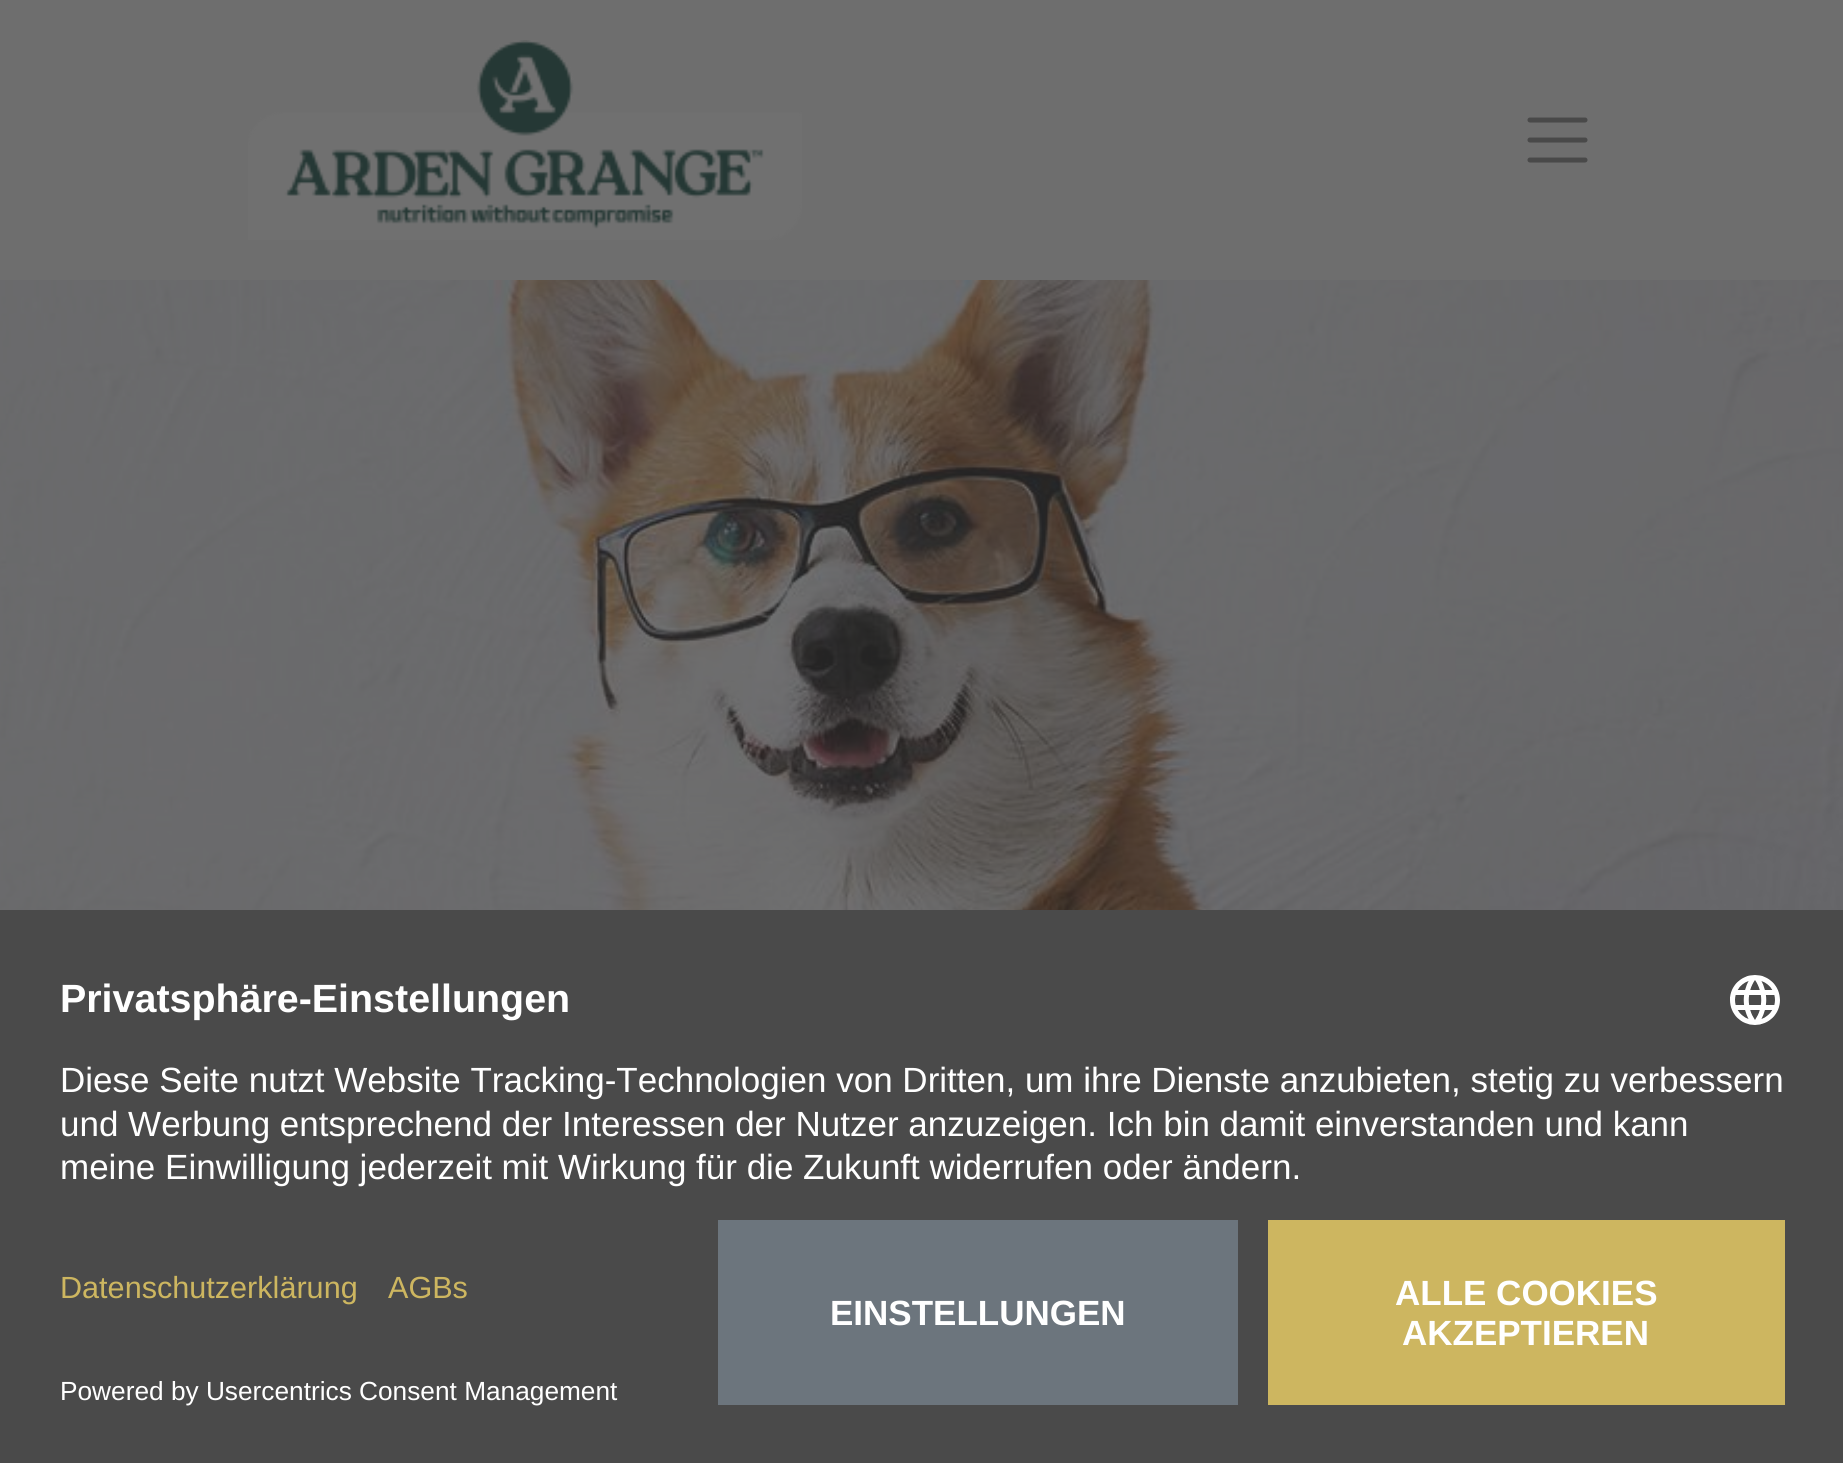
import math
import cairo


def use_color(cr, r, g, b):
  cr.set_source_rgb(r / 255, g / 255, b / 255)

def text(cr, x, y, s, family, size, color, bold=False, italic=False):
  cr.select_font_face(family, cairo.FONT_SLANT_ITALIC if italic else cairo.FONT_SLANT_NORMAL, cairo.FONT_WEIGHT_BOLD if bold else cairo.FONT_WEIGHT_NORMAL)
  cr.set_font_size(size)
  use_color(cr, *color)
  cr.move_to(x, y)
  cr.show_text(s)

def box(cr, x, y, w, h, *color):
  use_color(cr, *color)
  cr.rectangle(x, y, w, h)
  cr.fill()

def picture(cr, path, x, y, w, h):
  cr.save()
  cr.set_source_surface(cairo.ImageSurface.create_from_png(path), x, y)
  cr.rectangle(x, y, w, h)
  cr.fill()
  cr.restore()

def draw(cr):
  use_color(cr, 255, 255, 255)
  cr.paint()
  box(cr, 0, 0, 1843, 280, 110, 110, 110)
  picture(cr, "img_01.png", 248, 40, 554, 200)
  cr.new_path()
  cr.move_to(1530, 120)
  cr.line_to(1585, 120)
  cr.move_to(1530, 140)
  cr.line_to(1585, 140)
  cr.move_to(1530, 160)
  cr.line_to(1585, 160)
  use_color(cr, 73, 73, 73)
  cr.set_line_width(5)
  cr.set_line_cap(cairo.LINE_CAP_ROUND)
  cr.stroke()
  picture(cr, "img_02.png", 0, 280, 1843, 630)
  box(cr, 0, 910, 1843, 553, 74, 74, 74)
  picture(cr, "img_03.png", 1730, 975, 50, 50)
  box(cr, 718, 1220, 520, 185, 108, 117, 125)
  box(cr, 1268, 1220, 517, 185, 205, 182, 96)
  text(cr, 60, 1012, "Privatsphäre-Einstellungen", "Liberation Sans", 39.4, (255, 255, 255), bold=True)
  text(cr, 60, 1092, "Diese Seite nutzt Website Tracking-Technologien von Dritten, um ihre Dienste anzubieten, stetig zu verbessern", "Liberation Sans", 35, (255, 255, 255))
  text(cr, 60, 1136, "und Werbung entsprechend der Interessen der Nutzer anzuzeigen. Ich bin damit einverstanden und kann", "Liberation Sans", 35, (255, 255, 255))
  text(cr, 60, 1179, "meine Einwilligung jederzeit mit Wirkung für die Zukunft widerrufen oder ändern.", "Liberation Sans", 35, (255, 255, 255))
  text(cr, 60, 1298, "Datenschutzerklärung", "Liberation Sans", 30.6, (205, 182, 96))
  text(cr, 388, 1298, "AGBs", "Liberation Sans", 30.6, (205, 182, 96))
  text(cr, 60, 1400, "Powered by Usercentrics Consent Management", "Liberation Sans", 26.25, (255, 255, 255))
  text(cr, 830, 1325, "EINSTELLUNGEN", "Liberation Sans", 35, (255, 255, 255), bold=True)
  text(cr, 1395, 1305, "ALLE COOKIES", "Liberation Sans", 35, (255, 255, 255), bold=True)
  text(cr, 1402, 1345, "AKZEPTIEREN", "Liberation Sans", 35, (255, 255, 255), bold=True)


surface = cairo.ImageSurface(cairo.FORMAT_RGB24, 1843, 1463)
cr = cairo.Context(surface)
options = cairo.FontOptions()
options.set_hint_metrics(cairo.HINT_METRICS_OFF)
options.set_hint_style(cairo.HINT_STYLE_NONE)
cr.set_font_options(options)
cr.set_miter_limit(4)
draw(cr)
surface.write_to_png("out.png")
